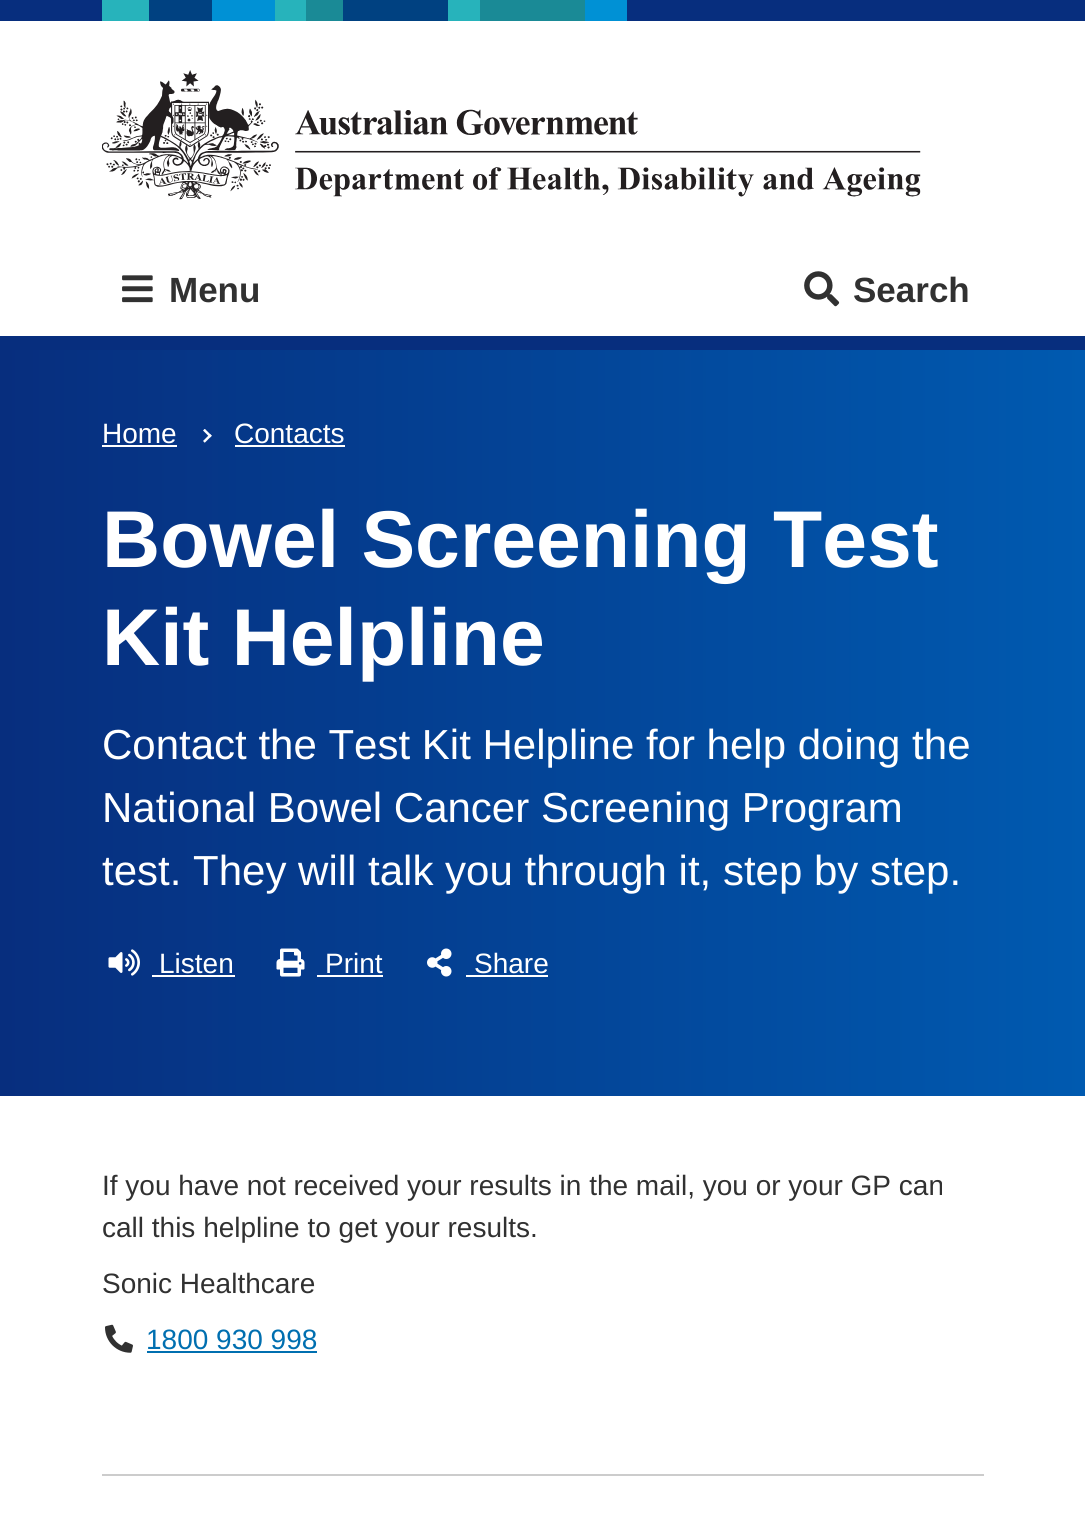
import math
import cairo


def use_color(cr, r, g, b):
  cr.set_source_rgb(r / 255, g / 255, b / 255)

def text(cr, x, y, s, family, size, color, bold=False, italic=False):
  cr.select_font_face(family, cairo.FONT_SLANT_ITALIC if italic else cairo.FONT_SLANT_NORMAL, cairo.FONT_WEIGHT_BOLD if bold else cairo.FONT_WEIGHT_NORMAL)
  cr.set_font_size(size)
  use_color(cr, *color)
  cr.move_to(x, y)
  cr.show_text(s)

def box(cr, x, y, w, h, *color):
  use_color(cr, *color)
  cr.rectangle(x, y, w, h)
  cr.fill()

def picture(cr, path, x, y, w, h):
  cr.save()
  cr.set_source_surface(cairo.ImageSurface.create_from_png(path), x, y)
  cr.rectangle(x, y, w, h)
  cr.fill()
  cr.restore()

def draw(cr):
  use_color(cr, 255, 255, 255)
  cr.paint()
  box(cr, 0, 0, 1085, 21, 7, 46, 126)
  box(cr, 102, 0, 47, 21, 39, 179, 187)
  box(cr, 149, 0, 63, 21, 0, 65, 129)
  box(cr, 212, 0, 63, 21, 0, 145, 213)
  box(cr, 275, 0, 31, 21, 39, 179, 187)
  box(cr, 306, 0, 37, 21, 26, 138, 150)
  box(cr, 343, 0, 105, 21, 0, 65, 129)
  box(cr, 448, 0, 32, 21, 39, 179, 187)
  box(cr, 480, 0, 105, 21, 26, 138, 150)
  box(cr, 585, 0, 42, 21, 0, 145, 213)
  picture(cr, "img_01.png", 102, 70, 819, 130)
  box(cr, 0, 336, 1085, 14, 7, 46, 126)
  picture(cr, "img_02.png", 122, 275, 31, 28)
  picture(cr, "img_03.png", 804, 271, 36, 36)
  gradient = cairo.LinearGradient(0, 723, 1085, 723)
  gradient.add_color_stop_rgba(0, 0.027, 0.18, 0.494, 1)
  gradient.add_color_stop_rgba(1, 0, 0.353, 0.69, 1)
  cr.set_source(gradient)
  cr.rectangle(0, 350, 1085, 746)
  cr.fill()
  box(cr, 102, 445, 75, 2, 255, 255, 255)
  picture(cr, "img_04.png", 203, 429, 9, 14)
  box(cr, 235, 445, 110, 2, 255, 255, 255)
  picture(cr, "img_05.png", 108, 949, 32, 27)
  box(cr, 152, 975, 83, 2, 255, 255, 255)
  picture(cr, "img_06.png", 276, 948, 29, 29)
  box(cr, 317, 975, 66, 2, 255, 255, 255)
  picture(cr, "img_07.png", 427, 948, 25, 29)
  box(cr, 466, 975, 82, 2, 255, 255, 255)
  picture(cr, "img_08.png", 105, 1324, 28, 29)
  box(cr, 147, 1351, 170, 2, 0, 111, 176)
  box(cr, 102, 1474, 882, 2, 204, 204, 204)
  text(cr, 169, 302, "Menu", "Liberation Sans", 35, (49, 49, 49), bold=True)
  text(cr, 853, 302, "Search", "Liberation Sans", 35, (49, 49, 49), bold=True)
  text(cr, 102, 443, "Home", "Liberation Sans", 28, (255, 255, 255))
  text(cr, 234, 443, "Contacts", "Liberation Sans", 28, (255, 255, 255))
  text(cr, 102, 567, "Bowel Screening Test", "Liberation Sans", 80.5, (255, 255, 255), bold=True)
  text(cr, 102, 665, "Kit Helpline", "Liberation Sans", 80.5, (255, 255, 255), bold=True)
  text(cr, 102, 759, "Contact the Test Kit Helpline for help doing the", "Liberation Sans", 42, (255, 255, 255))
  text(cr, 102, 822, "National Bowel Cancer Screening Program", "Liberation Sans", 42, (255, 255, 255))
  text(cr, 102, 885, "test. They will talk you through it, step by step.", "Liberation Sans", 42, (255, 255, 255))
  text(cr, 159, 973, "Listen", "Liberation Sans", 28, (255, 255, 255))
  text(cr, 325, 973, "Print", "Liberation Sans", 28, (255, 255, 255))
  text(cr, 474, 973, "Share", "Liberation Sans", 28, (255, 255, 255))
  text(cr, 102, 1195, "If you have not received your results in the mail, you or your GP can", "Liberation Sans", 28, (49, 49, 49))
  text(cr, 102, 1237, "call this helpline to get your results.", "Liberation Sans", 28, (49, 49, 49))
  text(cr, 102, 1293, "Sonic Healthcare", "Liberation Sans", 28, (49, 49, 49))
  text(cr, 146, 1349, "1800 930 998", "Liberation Sans", 28, (0, 111, 176))


surface = cairo.ImageSurface(cairo.FORMAT_RGB24, 1085, 1538)
cr = cairo.Context(surface)
options = cairo.FontOptions()
options.set_hint_metrics(cairo.HINT_METRICS_OFF)
options.set_hint_style(cairo.HINT_STYLE_NONE)
cr.set_font_options(options)
cr.set_miter_limit(4)
draw(cr)
surface.write_to_png("out.png")
